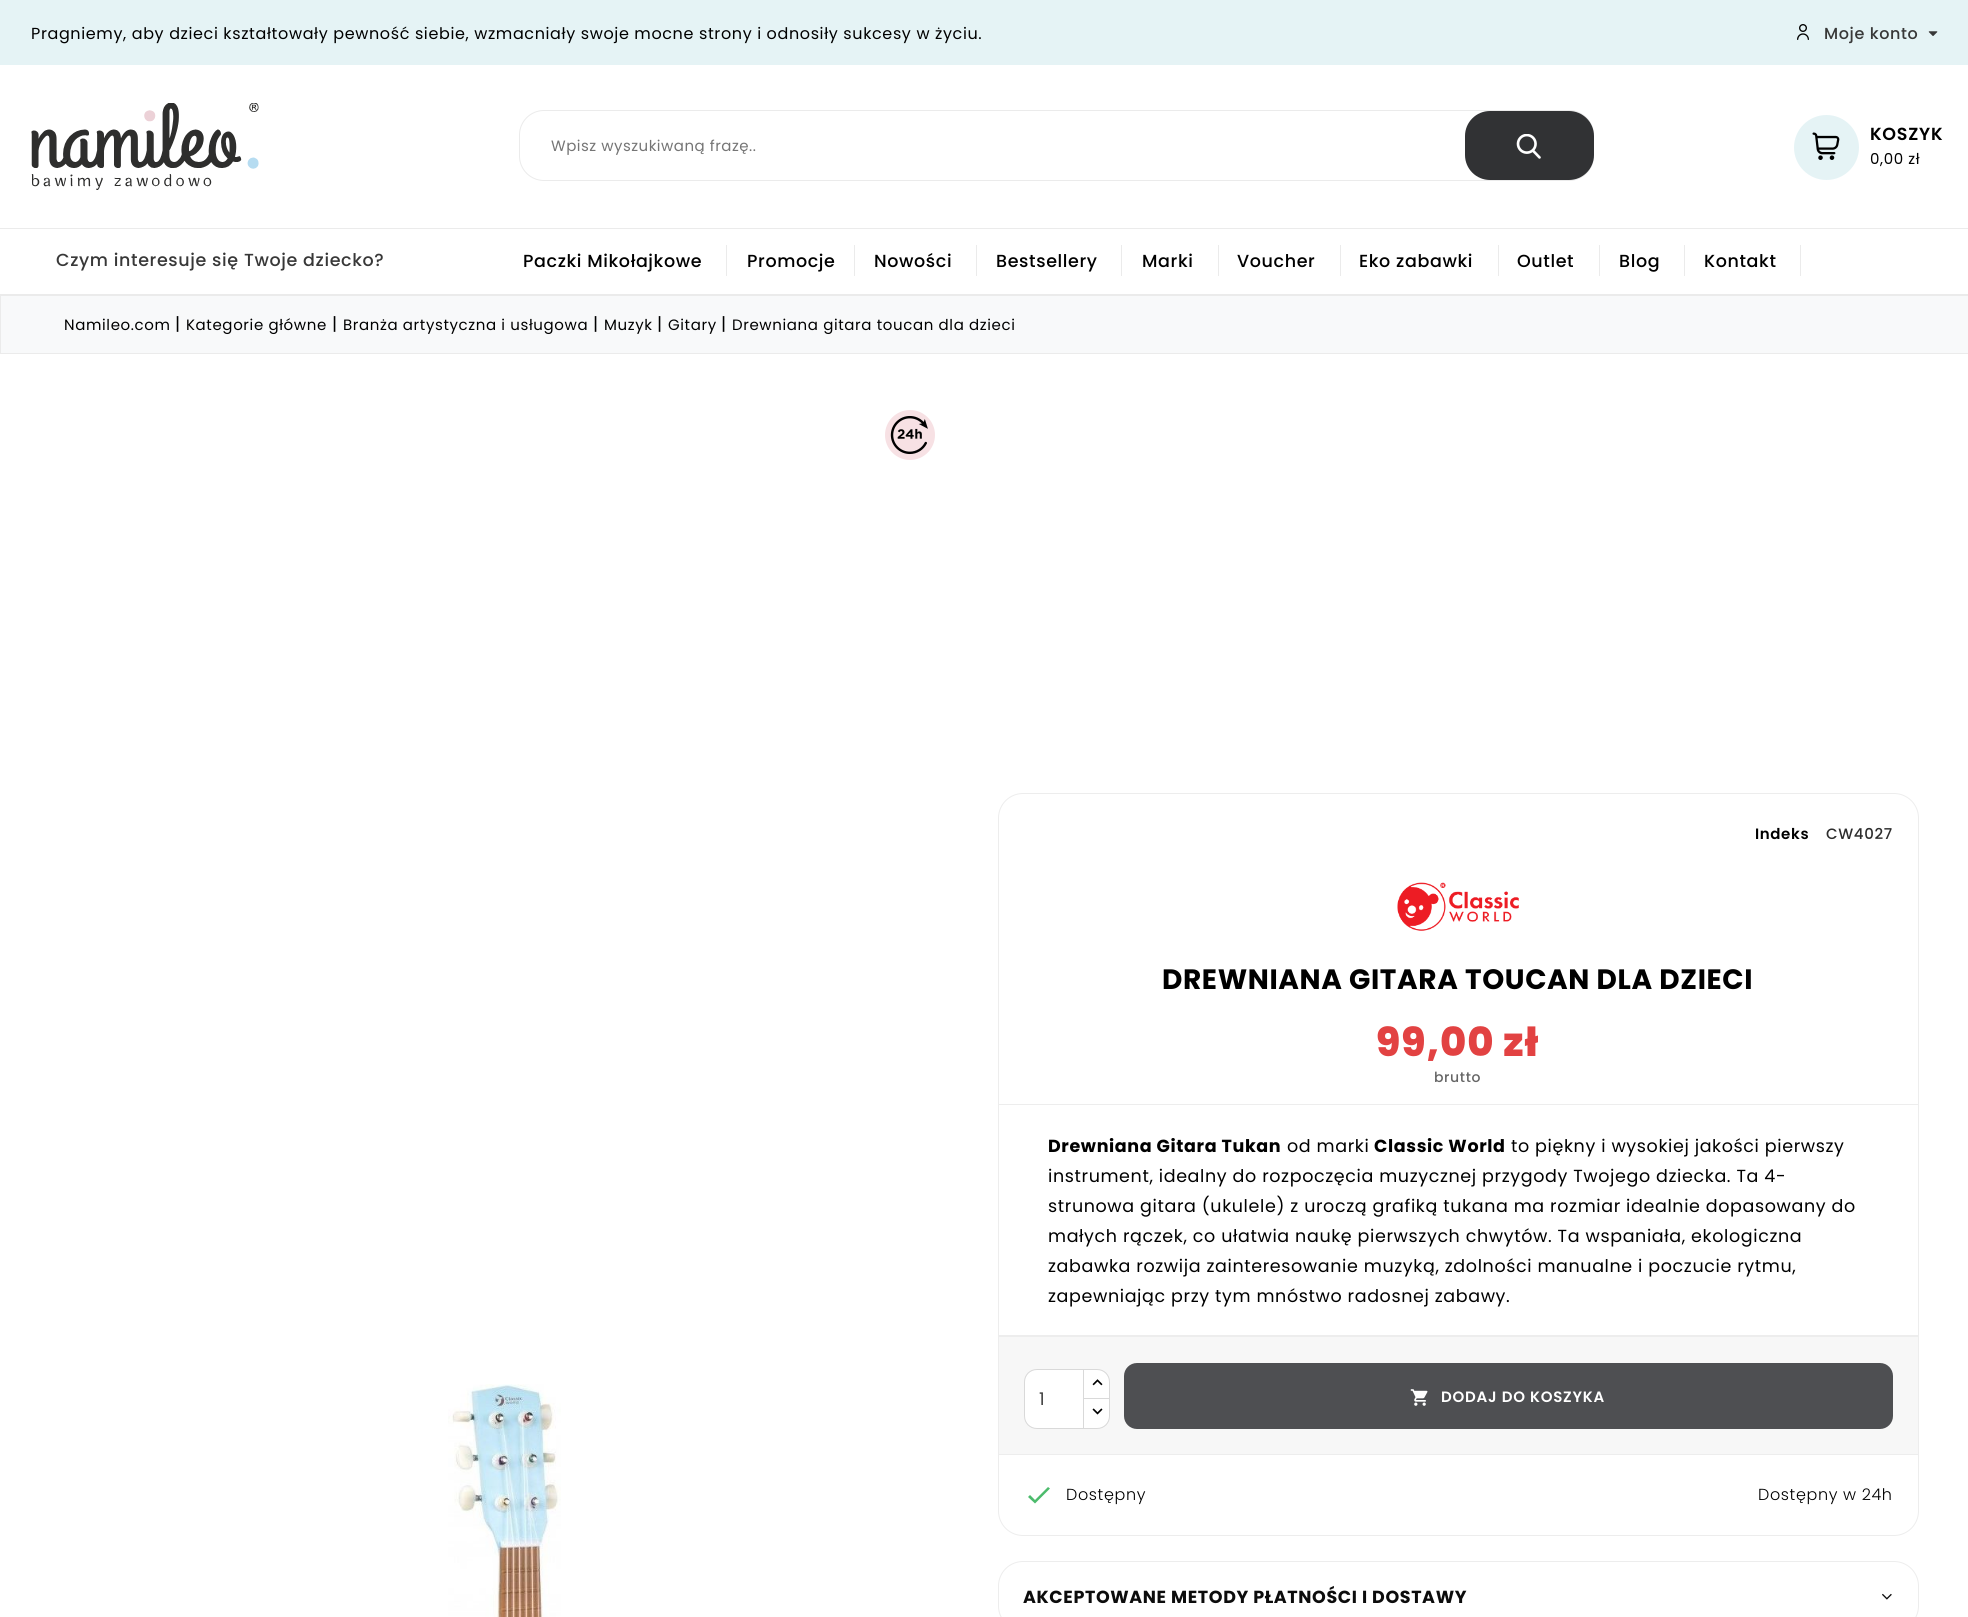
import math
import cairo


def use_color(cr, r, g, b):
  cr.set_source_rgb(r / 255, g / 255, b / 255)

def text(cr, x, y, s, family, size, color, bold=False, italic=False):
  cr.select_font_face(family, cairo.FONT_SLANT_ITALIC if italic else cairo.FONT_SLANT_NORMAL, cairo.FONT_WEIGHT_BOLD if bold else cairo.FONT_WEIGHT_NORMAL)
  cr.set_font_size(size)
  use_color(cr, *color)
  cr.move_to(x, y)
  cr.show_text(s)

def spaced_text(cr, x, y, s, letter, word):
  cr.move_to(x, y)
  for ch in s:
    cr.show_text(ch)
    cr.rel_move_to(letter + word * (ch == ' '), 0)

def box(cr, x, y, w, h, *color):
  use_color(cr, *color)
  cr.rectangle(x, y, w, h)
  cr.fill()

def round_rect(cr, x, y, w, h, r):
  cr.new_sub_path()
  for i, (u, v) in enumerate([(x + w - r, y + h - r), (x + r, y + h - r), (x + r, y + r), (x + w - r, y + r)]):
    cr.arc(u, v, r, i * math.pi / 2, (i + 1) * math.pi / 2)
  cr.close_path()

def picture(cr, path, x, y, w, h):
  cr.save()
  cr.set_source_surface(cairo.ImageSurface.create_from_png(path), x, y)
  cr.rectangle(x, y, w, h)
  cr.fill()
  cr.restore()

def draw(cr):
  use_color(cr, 255, 255, 255)
  cr.paint()
  box(cr, 0, 0, 1968, 65, 229, 243, 245)
  picture(cr, "img_01.png", 1797, 24, 12, 16)
  picture(cr, "img_02.png", 1928, 31, 10, 5)
  picture(cr, "img_03.png", 31, 103, 228, 87)
  round_rect(cr, 519.5, 110.5, 1074, 70, 24.5)
  use_color(cr, 235, 235, 235)
  cr.set_line_width(1)
  cr.stroke()
  use_color(cr, 49, 50, 52)
  round_rect(cr, 1465, 111, 129, 69, 25)
  cr.fill()
  picture(cr, "img_04.png", 1516, 134, 25, 25)
  use_color(cr, 229, 243, 245)
  cr.arc(1826.5, 147.5, 32.5, 0, 2 * math.pi)
  cr.fill()
  picture(cr, "img_05.png", 1812, 132, 28, 28)
  box(cr, 0, 228, 1968, 1, 235, 235, 235)
  box(cr, 0, 294, 1968, 1, 235, 235, 235)
  box(cr, 726, 245, 1, 31, 235, 235, 235)
  box(cr, 854, 245, 1, 31, 235, 235, 235)
  box(cr, 976, 245, 1, 31, 235, 235, 235)
  box(cr, 1121, 245, 1, 31, 235, 235, 235)
  box(cr, 1218, 245, 1, 31, 235, 235, 235)
  box(cr, 1340, 245, 1, 31, 235, 235, 235)
  box(cr, 1498, 245, 1, 31, 235, 235, 235)
  box(cr, 1599, 245, 1, 31, 235, 235, 235)
  box(cr, 1684, 245, 1, 31, 235, 235, 235)
  box(cr, 1800, 245, 1, 31, 235, 235, 235)
  use_color(cr, 248, 249, 250)
  cr.rectangle(0.5, 295.5, 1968, 58)
  cr.fill_preserve()
  use_color(cr, 235, 235, 235)
  cr.stroke()
  picture(cr, "img_06.png", 885, 410, 50, 50)
  picture(cr, "img_07.png", 448, 1384, 113, 233)
  round_rect(cr, 998.5, 793.5, 920, 742, 24.5)
  use_color(cr, 237, 237, 237)
  cr.stroke()
  picture(cr, "img_08.png", 1397, 882, 122, 49)
  box(cr, 999, 1104, 919, 1, 237, 237, 237)
  box(cr, 999, 1335, 919, 2, 237, 237, 237)
  box(cr, 999, 1337, 919, 117, 247, 247, 247)
  box(cr, 999, 1454, 919, 1, 237, 237, 237)
  use_color(cr, 255, 255, 255)
  cr.new_path()
  cr.move_to(1083, 1369)
  cr.line_to(1097, 1369)
  cr.curve_to(1104, 1369, 1110, 1375, 1110, 1382)
  cr.line_to(1110, 1400)
  cr.line_to(1083, 1400)
  cr.close_path()
  cr.fill()
  cr.new_path()
  cr.move_to(1083.5, 1369.5)
  cr.line_to(1097, 1369.5)
  cr.curve_to(1104, 1369.5, 1109.5, 1375, 1109.5, 1382)
  cr.line_to(1109.5, 1399.5)
  cr.line_to(1083.5, 1399.5)
  cr.close_path()
  cr.set_source_rgba(0, 0, 0, 0.15)
  cr.stroke()
  use_color(cr, 255, 255, 255)
  cr.new_path()
  cr.move_to(1083, 1398)
  cr.line_to(1110, 1398)
  cr.line_to(1110, 1416)
  cr.curve_to(1110, 1423, 1104, 1429, 1097, 1429)
  cr.line_to(1083, 1429)
  cr.close_path()
  cr.fill()
  cr.new_path()
  cr.move_to(1083.5, 1398.5)
  cr.line_to(1109.5, 1398.5)
  cr.line_to(1109.5, 1416)
  cr.curve_to(1109.5, 1423, 1104, 1428.5, 1097, 1428.5)
  cr.line_to(1083.5, 1428.5)
  cr.close_path()
  cr.set_source_rgba(0, 0, 0, 0.15)
  cr.stroke()
  use_color(cr, 255, 255, 255)
  cr.new_path()
  cr.move_to(1037, 1369)
  cr.line_to(1084, 1369)
  cr.line_to(1084, 1429)
  cr.line_to(1037, 1429)
  cr.curve_to(1030, 1429, 1024, 1423, 1024, 1416)
  cr.line_to(1024, 1382)
  cr.curve_to(1024, 1375, 1030, 1369, 1037, 1369)
  cr.close_path()
  cr.fill()
  cr.new_path()
  cr.move_to(1037, 1369.5)
  cr.line_to(1083.5, 1369.5)
  cr.line_to(1083.5, 1428.5)
  cr.line_to(1037, 1428.5)
  cr.curve_to(1030, 1428.5, 1024.5, 1423, 1024.5, 1416)
  cr.line_to(1024.5, 1382)
  cr.curve_to(1024.5, 1375, 1030, 1369.5, 1037, 1369.5)
  cr.close_path()
  cr.set_source_rgba(0, 0, 0, 0.15)
  cr.stroke()
  picture(cr, "img_09.png", 1092, 1379, 11, 7)
  picture(cr, "img_10.png", 1092, 1408, 11, 7)
  use_color(cr, 78, 79, 82)
  round_rect(cr, 1124, 1363, 769, 66, 13)
  cr.fill()
  picture(cr, "img_11.png", 1410, 1389, 18, 17)
  use_color(cr, 76, 187, 108)
  cr.new_path()
  cr.move_to(1035, 1500)
  cr.line_to(1048, 1487)
  cr.line_to(1050, 1488.5)
  cr.line_to(1035, 1503.5)
  cr.line_to(1028, 1497)
  cr.line_to(1030, 1495)
  cr.close_path()
  cr.fill()
  round_rect(cr, 998.5, 1561.5, 920, 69, 24.5)
  use_color(cr, 237, 237, 237)
  cr.stroke()
  picture(cr, "img_12.png", 1882, 1593, 10, 7)
  cr.select_font_face("Poppins")
  cr.set_font_size(16)
  use_color(cr, 0, 0, 0)
  spaced_text(cr, 31, 39, "Pragniemy, aby dzieci kształtowały pewność siebie, wzmacniały swoje mocne strony i odnosiły sukcesy w życiu.", 0.62, 0)
  cr.select_font_face("Poppins Medium")
  use_color(cr, 56, 56, 56)
  spaced_text(cr, 1824, 39, "Moje konto", 0.62, 0)
  cr.select_font_face("Poppins")
  cr.set_font_size(15)
  use_color(cr, 117, 117, 117)
  spaced_text(cr, 551, 151, "Wpisz wyszukiwaną frazę..", 0.5, 0)
  cr.select_font_face("Poppins SemiBold")
  cr.set_font_size(17.5)
  use_color(cr, 0, 0, 0)
  spaced_text(cr, 1870, 140, "KOSZYK", 0.75, 0)
  cr.select_font_face("Poppins")
  cr.set_font_size(15)
  spaced_text(cr, 1870, 164, "0,00 zł", 0.62, 0)
  cr.select_font_face("Poppins Medium")
  cr.set_font_size(17.5)
  use_color(cr, 56, 56, 56)
  spaced_text(cr, 56, 266, "Czym interesuje się Twoje dziecko?", 0.62, 0)
  use_color(cr, 0, 0, 0)
  spaced_text(cr, 523, 267, "Paczki Mikołajkowe", 0.62, 0)
  spaced_text(cr, 747, 267, "Promocje", 0.62, 0)
  spaced_text(cr, 874, 267, "Nowości", 0.62, 0)
  spaced_text(cr, 996, 267, "Bestsellery", 0.62, 0)
  spaced_text(cr, 1142, 267, "Marki", 0.62, 0)
  spaced_text(cr, 1237, 267, "Voucher", 0.62, 0)
  spaced_text(cr, 1359, 267, "Eko zabawki", 0.62, 0)
  spaced_text(cr, 1517, 267, "Outlet", 0.62, 0)
  spaced_text(cr, 1619, 267, "Blog", 0.62, 0)
  spaced_text(cr, 1704, 267, "Kontakt", 0.62, 0)
  cr.select_font_face("Poppins")
  cr.set_font_size(15)
  spaced_text(cr, 64, 330, "Namileo.com", 0.62, 0)
  cr.set_font_size(17.5)
  spaced_text(cr, 175, 330, "|", 0.62, 0)
  cr.set_font_size(15)
  spaced_text(cr, 186, 330, "Kategorie główne", 0.62, 0)
  cr.set_font_size(17.5)
  spaced_text(cr, 332, 330, "|", 0.62, 0)
  cr.set_font_size(15)
  spaced_text(cr, 343, 330, "Branża artystyczna i usługowa", 0.62, 0)
  cr.set_font_size(17.5)
  spaced_text(cr, 593, 330, "|", 0.62, 0)
  cr.set_font_size(15)
  spaced_text(cr, 604, 330, "Muzyk", 0.62, 0)
  cr.set_font_size(17.5)
  spaced_text(cr, 657, 330, "|", 0.62, 0)
  cr.set_font_size(15)
  spaced_text(cr, 668, 330, "Gitary", 0.62, 0)
  cr.set_font_size(17.5)
  spaced_text(cr, 721, 330, "|", 0.62, 0)
  cr.set_font_size(15)
  spaced_text(cr, 732, 330, "Drewniana gitara toucan dla dzieci", 0.62, 0)
  cr.select_font_face("Poppins SemiBold")
  spaced_text(cr, 1755, 839, "Indeks", 0.62, 0)
  cr.select_font_face("Poppins Medium")
  use_color(cr, 45, 45, 45)
  spaced_text(cr, 1826, 839, "CW4027", 0.62, 0)
  cr.select_font_face("Poppins", cairo.FONT_SLANT_NORMAL, cairo.FONT_WEIGHT_BOLD)
  cr.set_font_size(28)
  use_color(cr, 0, 0, 0)
  spaced_text(cr, 1162, 989, "DREWNIANA GITARA TOUCAN DLA DZIECI", 0.62, 0)
  cr.select_font_face("Poppins ExtraBold")
  cr.set_font_size(40)
  use_color(cr, 226, 66, 66)
  spaced_text(cr, 1376, 1056, "99,00 zł", 1, 0)
  cr.select_font_face("Poppins Medium")
  cr.set_font_size(14)
  use_color(cr, 102, 102, 102)
  spaced_text(cr, 1434, 1082, "brutto", 0.62, 0)
  cr.select_font_face("Poppins", cairo.FONT_SLANT_NORMAL, cairo.FONT_WEIGHT_BOLD)
  cr.set_font_size(17.5)
  use_color(cr, 0, 0, 0)
  spaced_text(cr, 1048, 1152, "Drewniana Gitara Tukan", 0.62, 0)
  cr.select_font_face("Poppins")
  spaced_text(cr, 1287, 1152, "od marki", 0.62, 0)
  cr.select_font_face("Poppins", cairo.FONT_SLANT_NORMAL, cairo.FONT_WEIGHT_BOLD)
  spaced_text(cr, 1374, 1152, "Classic World", 0.62, 0)
  cr.select_font_face("Poppins")
  spaced_text(cr, 1511, 1152, "to piękny i wysokiej jakości pierwszy", 0.62, 0)
  spaced_text(cr, 1048, 1182, "instrument, idealny do rozpoczęcia muzycznej przygody Twojego dziecka. Ta 4-", 0.62, 0)
  spaced_text(cr, 1048, 1212, "strunowa gitara (ukulele) z uroczą grafiką tukana ma rozmiar idealnie dopasowany do", 0.62, 0)
  spaced_text(cr, 1048, 1242, "małych rączek, co ułatwia naukę pierwszych chwytów. Ta wspaniała, ekologiczna", 0.62, 0)
  spaced_text(cr, 1048, 1272, "zabawka rozwija zainteresowanie muzyką, zdolności manualne i poczucie rytmu,", 0.62, 0)
  spaced_text(cr, 1048, 1302, "zapewniając przy tym mnóstwo radosnej zabawy.", 0.62, 0)
  text(cr, 1039, 1405, "1", "Poppins", 17.5, (65, 65, 65))
  cr.select_font_face("Poppins SemiBold")
  cr.set_font_size(15)
  use_color(cr, 255, 255, 255)
  spaced_text(cr, 1441, 1402, "DODAJ DO KOSZYKA", 0.75, 0)
  cr.select_font_face("Poppins Light")
  cr.set_font_size(16)
  use_color(cr, 0, 0, 0)
  spaced_text(cr, 1066, 1500, "Dostępny", 0.62, 0)
  spaced_text(cr, 1758, 1500, "Dostępny w 24h", 0.62, 0)
  cr.select_font_face("Poppins", cairo.FONT_SLANT_NORMAL, cairo.FONT_WEIGHT_BOLD)
  cr.set_font_size(17.5)
  use_color(cr, 12, 12, 12)
  spaced_text(cr, 1023, 1603, "AKCEPTOWANE METODY PŁATNOŚCI I DOSTAWY", 0.62, 0)


surface = cairo.ImageSurface(cairo.FORMAT_RGB24, 1968, 1617)
cr = cairo.Context(surface)
options = cairo.FontOptions()
options.set_hint_metrics(cairo.HINT_METRICS_OFF)
options.set_hint_style(cairo.HINT_STYLE_NONE)
cr.set_font_options(options)
cr.set_miter_limit(4)
draw(cr)
surface.write_to_png("out.png")
